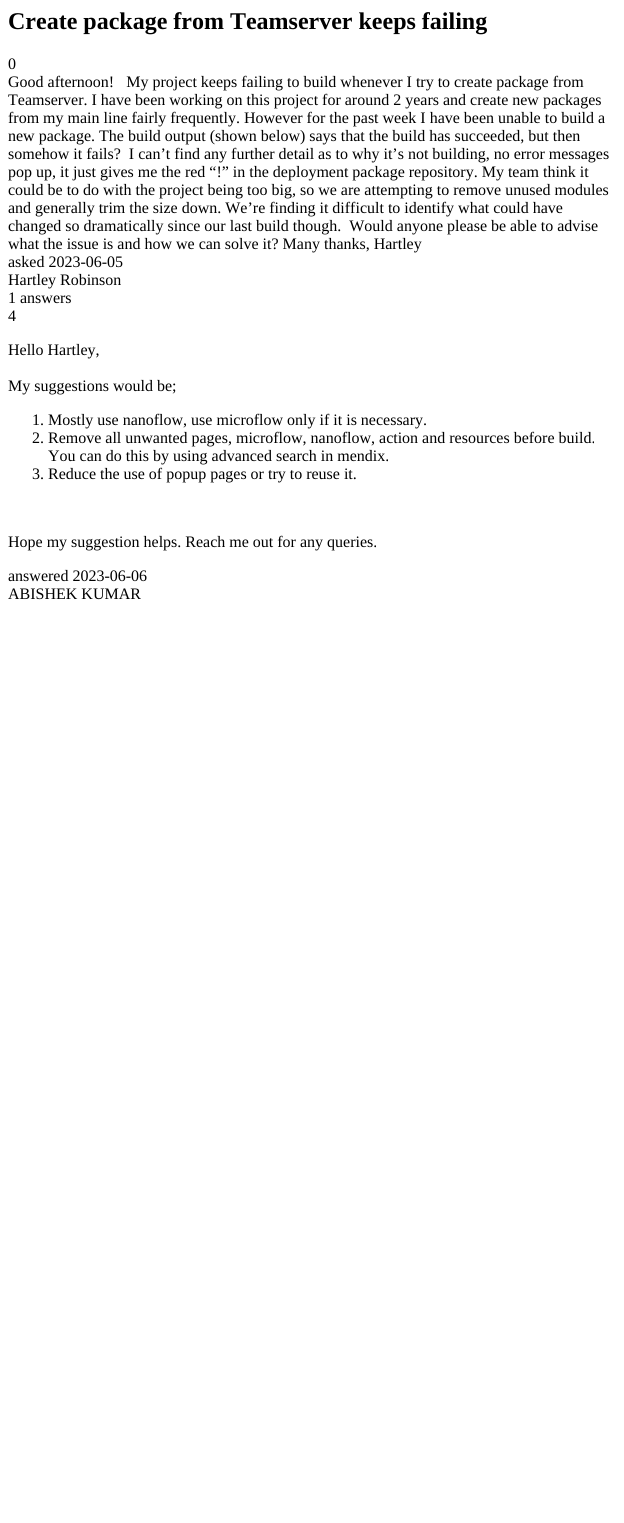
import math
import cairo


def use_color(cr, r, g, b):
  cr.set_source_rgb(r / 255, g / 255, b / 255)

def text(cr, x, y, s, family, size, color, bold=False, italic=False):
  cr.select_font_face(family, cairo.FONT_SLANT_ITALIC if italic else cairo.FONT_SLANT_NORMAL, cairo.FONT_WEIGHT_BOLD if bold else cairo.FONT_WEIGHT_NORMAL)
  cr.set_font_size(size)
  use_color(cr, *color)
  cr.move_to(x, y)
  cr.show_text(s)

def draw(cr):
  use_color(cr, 255, 255, 255)
  cr.paint()
  text(cr, 8, 29, "Create package from Teamserver keeps failing", "Liberation Serif", 24, (0, 0, 0), bold=True)
  text(cr, 8, 69, "0", "Liberation Serif", 16, (0, 0, 0))
  text(cr, 8, 87, "Good afternoon!   My project keeps failing to build whenever I try to create package from", "Liberation Serif", 16, (0, 0, 0))
  text(cr, 8, 105, "Teamserver. I have been working on this project for around 2 years and create new packages", "Liberation Serif", 16, (0, 0, 0))
  text(cr, 8, 123, "from my main line fairly frequently. However for the past week I have been unable to build a", "Liberation Serif", 16, (0, 0, 0))
  text(cr, 8, 141, "new package. The build output (shown below) says that the build has succeeded, but then", "Liberation Serif", 16, (0, 0, 0))
  text(cr, 8, 159, "somehow it fails?  I can’t find any further detail as to why it’s not building, no error messages", "Liberation Serif", 16, (0, 0, 0))
  text(cr, 8, 177, "pop up, it just gives me the red “!” in the deployment package repository. My team think it", "Liberation Serif", 16, (0, 0, 0))
  text(cr, 8, 195, "could be to do with the project being too big, so we are attempting to remove unused modules", "Liberation Serif", 16, (0, 0, 0))
  text(cr, 8, 213, "and generally trim the size down. We’re finding it difficult to identify what could have", "Liberation Serif", 16, (0, 0, 0))
  text(cr, 8, 231, "changed so dramatically since our last build though.  Would anyone please be able to advise", "Liberation Serif", 16, (0, 0, 0))
  text(cr, 8, 249, "what the issue is and how we can solve it? Many thanks, Hartley", "Liberation Serif", 16, (0, 0, 0))
  text(cr, 8, 267, "asked 2023-06-05", "Liberation Serif", 16, (0, 0, 0))
  text(cr, 8, 285, "Hartley Robinson", "Liberation Serif", 16, (0, 0, 0))
  text(cr, 8, 303, "1 answers", "Liberation Serif", 16, (0, 0, 0))
  text(cr, 8, 321, "4", "Liberation Serif", 16, (0, 0, 0))
  text(cr, 8, 355, "Hello Hartley,", "Liberation Serif", 16, (0, 0, 0))
  text(cr, 8, 391, "My suggestions would be;", "Liberation Serif", 16, (0, 0, 0))
  text(cr, 32, 425, "1. Mostly use nanoflow, use microflow only if it is necessary.", "Liberation Serif", 16, (0, 0, 0))
  text(cr, 32, 443, "2. Remove all unwanted pages, microflow, nanoflow, action and resources before build.", "Liberation Serif", 16, (0, 0, 0))
  text(cr, 48, 461, "You can do this by using advanced search in mendix.", "Liberation Serif", 16, (0, 0, 0))
  text(cr, 32, 479, "3. Reduce the use of popup pages or try to reuse it.", "Liberation Serif", 16, (0, 0, 0))
  text(cr, 8, 547, "Hope my suggestion helps. Reach me out for any queries.", "Liberation Serif", 16, (0, 0, 0))
  text(cr, 8, 581, "answered 2023-06-06", "Liberation Serif", 16, (0, 0, 0))
  text(cr, 8, 599, "ABISHEK KUMAR", "Liberation Serif", 16, (0, 0, 0))


surface = cairo.ImageSurface(cairo.FORMAT_RGB24, 624, 1523)
cr = cairo.Context(surface)
options = cairo.FontOptions()
options.set_hint_metrics(cairo.HINT_METRICS_OFF)
options.set_hint_style(cairo.HINT_STYLE_NONE)
cr.set_font_options(options)
cr.set_miter_limit(4)
draw(cr)
surface.write_to_png("out.png")
